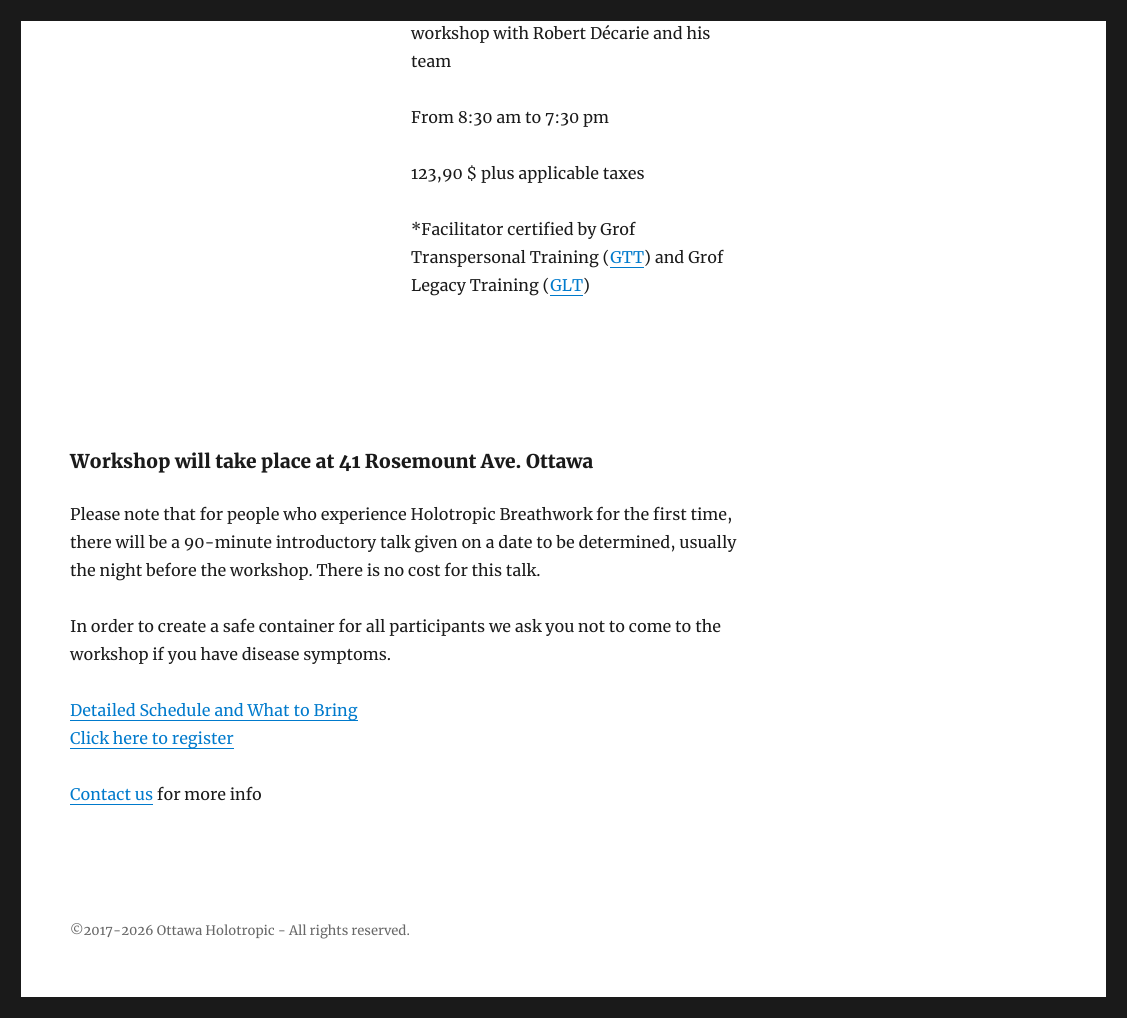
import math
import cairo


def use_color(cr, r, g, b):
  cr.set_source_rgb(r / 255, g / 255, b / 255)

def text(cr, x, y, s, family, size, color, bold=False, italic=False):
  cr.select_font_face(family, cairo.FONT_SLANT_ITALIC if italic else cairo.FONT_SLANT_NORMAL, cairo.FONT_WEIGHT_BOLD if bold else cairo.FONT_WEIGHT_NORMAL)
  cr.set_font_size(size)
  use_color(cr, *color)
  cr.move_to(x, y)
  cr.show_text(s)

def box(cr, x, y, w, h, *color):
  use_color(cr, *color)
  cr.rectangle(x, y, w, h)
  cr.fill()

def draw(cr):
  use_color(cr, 26, 26, 26)
  cr.paint()
  box(cr, 21, 21, 1085, 976, 255, 255, 255)
  box(cr, 610, 267, 34, 1, 0, 122, 204)
  box(cr, 550, 295, 33, 1, 0, 122, 204)
  box(cr, 70, 720, 288, 1, 0, 122, 204)
  box(cr, 70, 748, 164, 1, 0, 122, 204)
  box(cr, 70, 804, 83, 1, 0, 122, 204)
  text(cr, 411, 39, "workshop with Robert Décarie and his", "Merriweather", 16, (26, 26, 26))
  text(cr, 411, 67, "team", "Merriweather", 16, (26, 26, 26))
  text(cr, 411, 123, "From 8:30 am to 7:30 pm", "Merriweather", 16, (26, 26, 26))
  text(cr, 411, 179, "123,90 $ plus applicable taxes", "Merriweather", 16, (26, 26, 26))
  text(cr, 411, 235, "*Facilitator certified by Grof", "Merriweather", 16, (26, 26, 26))
  text(cr, 411, 263, "Transpersonal Training (", "Merriweather", 16, (26, 26, 26))
  text(cr, 610, 263, "GTT", "Merriweather", 16, (0, 122, 204))
  text(cr, 644, 263, ") and Grof", "Merriweather", 16, (26, 26, 26))
  text(cr, 411, 291, "Legacy Training (", "Merriweather", 16, (26, 26, 26))
  text(cr, 550, 291, "GLT", "Merriweather", 16, (0, 122, 204))
  text(cr, 583, 291, ")", "Merriweather", 16, (26, 26, 26))
  text(cr, 70, 468, "Workshop will take place at 41 Rosemount Ave. Ottawa", "Merriweather Black", 19, (26, 26, 26))
  text(cr, 70, 520, "Please note that for people who experience Holotropic Breathwork for the first time,", "Merriweather", 16, (26, 26, 26))
  text(cr, 70, 548, "there will be a 90-minute introductory talk given on a date to be determined, usually", "Merriweather", 16, (26, 26, 26))
  text(cr, 70, 576, "the night before the workshop. There is no cost for this talk.", "Merriweather", 16, (26, 26, 26))
  text(cr, 70, 632, "In order to create a safe container for all participants we ask you not to come to the", "Merriweather", 16, (26, 26, 26))
  text(cr, 70, 660, "workshop if you have disease symptoms.", "Merriweather", 16, (26, 26, 26))
  text(cr, 70, 716, "Detailed Schedule and What to Bring", "Merriweather", 16, (0, 122, 204))
  text(cr, 70, 744, "Click here to register", "Merriweather", 16, (0, 122, 204))
  text(cr, 70, 800, "Contact us", "Merriweather", 16, (0, 122, 204))
  text(cr, 157, 800, "for more info", "Merriweather", 16, (26, 26, 26))
  text(cr, 70, 935, "©2017-2026 Ottawa Holotropic - All rights reserved.", "Merriweather", 13, (104, 104, 104))


surface = cairo.ImageSurface(cairo.FORMAT_RGB24, 1127, 1018)
cr = cairo.Context(surface)
options = cairo.FontOptions()
options.set_hint_metrics(cairo.HINT_METRICS_OFF)
options.set_hint_style(cairo.HINT_STYLE_NONE)
cr.set_font_options(options)
cr.set_miter_limit(4)
draw(cr)
surface.write_to_png("out.png")
